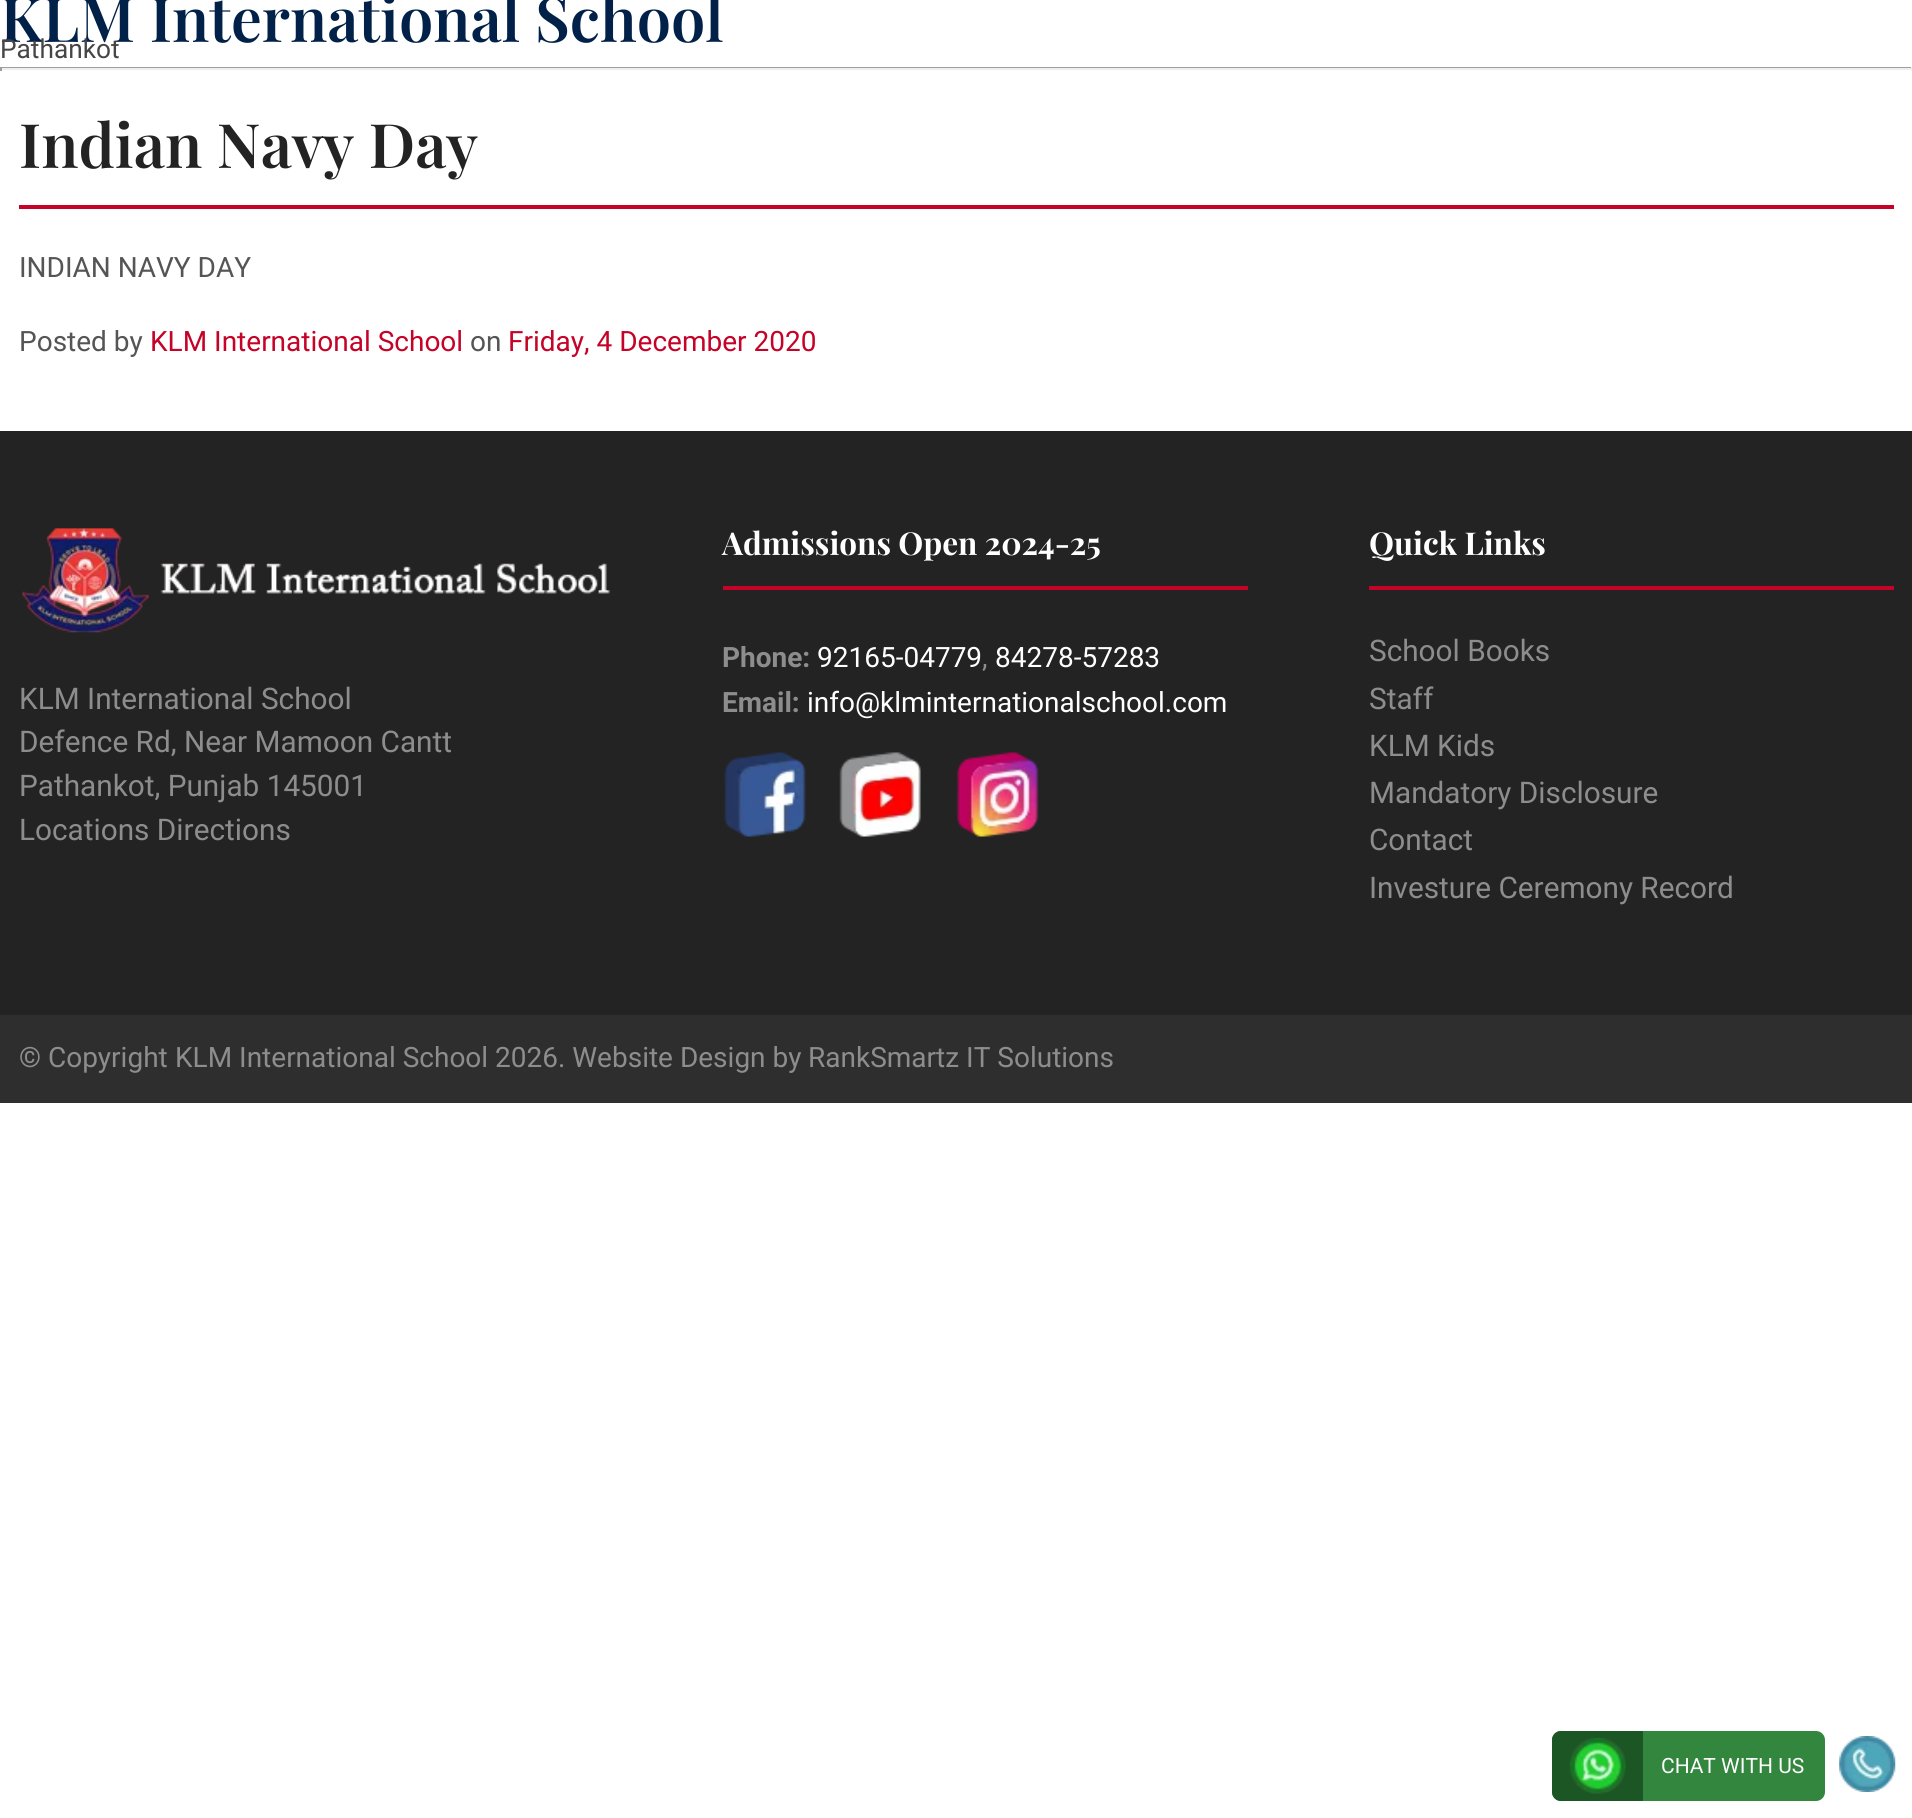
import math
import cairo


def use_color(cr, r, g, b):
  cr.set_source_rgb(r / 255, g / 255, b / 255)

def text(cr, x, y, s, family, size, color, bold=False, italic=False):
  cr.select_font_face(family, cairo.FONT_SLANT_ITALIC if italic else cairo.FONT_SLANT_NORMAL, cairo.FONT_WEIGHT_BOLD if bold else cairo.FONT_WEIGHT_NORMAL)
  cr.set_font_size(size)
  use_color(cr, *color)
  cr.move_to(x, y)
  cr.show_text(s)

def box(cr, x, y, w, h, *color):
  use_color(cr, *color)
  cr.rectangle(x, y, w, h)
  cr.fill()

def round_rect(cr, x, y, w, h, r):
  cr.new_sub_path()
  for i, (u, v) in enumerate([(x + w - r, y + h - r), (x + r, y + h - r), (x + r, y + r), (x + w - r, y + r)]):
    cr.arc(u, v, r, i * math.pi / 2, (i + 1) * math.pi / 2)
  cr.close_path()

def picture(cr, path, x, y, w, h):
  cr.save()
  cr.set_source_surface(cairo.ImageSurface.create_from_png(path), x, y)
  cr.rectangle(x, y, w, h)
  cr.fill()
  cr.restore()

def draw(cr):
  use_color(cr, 255, 255, 255)
  cr.paint()
  box(cr, 0, 67, 1912, 1, 159, 159, 159)
  box(cr, 1911, 67, 1, 4, 238, 238, 238)
  box(cr, 0, 68, 1912, 2, 238, 238, 238)
  box(cr, 0, 67, 2, 4, 159, 159, 159)
  box(cr, 19, 205, 1875, 4, 197, 2, 39)
  box(cr, 0, 431, 1912, 584, 35, 35, 35)
  picture(cr, "img_01.png", 22, 528, 588, 105)
  box(cr, 723, 586, 525, 4, 197, 2, 39)
  picture(cr, "img_02.png", 724, 752, 82, 85)
  picture(cr, "img_03.png", 839, 752, 82, 85)
  picture(cr, "img_04.png", 956, 752, 83, 85)
  box(cr, 1369, 586, 525, 4, 197, 2, 39)
  box(cr, 0, 1015, 1912, 88, 46, 46, 46)
  use_color(cr, 51, 134, 62)
  round_rect(cr, 1552, 1731, 273, 70, 9)
  cr.fill()
  use_color(cr, 28, 86, 36)
  cr.new_path()
  cr.move_to(1561, 1731)
  cr.line_to(1643, 1731)
  cr.line_to(1643, 1801)
  cr.line_to(1561, 1801)
  cr.curve_to(1556, 1801, 1552, 1797, 1552, 1792)
  cr.line_to(1552, 1740)
  cr.curve_to(1552, 1735, 1556, 1731, 1561, 1731)
  cr.close_path()
  cr.fill()
  picture(cr, "img_05.png", 1569, 1737, 57, 57)
  picture(cr, "img_06.png", 1839, 1736, 57, 56)
  text(cr, 0, 42, "KLM International School", "Playfair Display SemiBold", 61.25, (1, 33, 72))
  text(cr, 0, 58, "Pathankot", "Roboto", 26.25, (72, 69, 69))
  text(cr, 19, 168, "Indian Navy Day", "Playfair Display SemiBold", 61.25, (35, 35, 35))
  text(cr, 19, 277, "INDIAN NAVY DAY", "Roboto", 28, (85, 85, 85))
  text(cr, 19, 351, "Posted by", "Roboto", 28, (85, 85, 85))
  text(cr, 150, 351, "KLM International School", "Roboto", 28, (197, 2, 39))
  text(cr, 470, 351, "on", "Roboto", 28, (85, 85, 85))
  text(cr, 508, 351, "Friday, 4 December 2020", "Roboto", 28, (197, 2, 39))
  text(cr, 19, 709, "KLM International School", "Roboto", 29.75, (141, 141, 141))
  text(cr, 19, 752, "Defence Rd, Near Mamoon Cantt", "Roboto", 29.75, (141, 141, 141))
  text(cr, 19, 796, "Pathankot, Punjab 145001", "Roboto", 29.75, (141, 141, 141))
  text(cr, 19, 840, "Locations Directions", "Roboto", 29.75, (141, 141, 141))
  text(cr, 722, 555, "Admissions Open 2024-25", "Playfair Display", 31.5, (255, 255, 255), bold=True)
  text(cr, 722, 667, "Phone:", "Roboto", 28, (141, 141, 141), bold=True)
  text(cr, 817, 667, "92165-04779", "Roboto", 28, (255, 255, 255))
  text(cr, 982, 667, ",", "Roboto", 28, (141, 141, 141))
  text(cr, 995, 667, "84278-57283", "Roboto", 28, (255, 255, 255))
  text(cr, 722, 712, "Email:", "Roboto", 28, (141, 141, 141), bold=True)
  text(cr, 807, 712, "info@klminternationalschool.com", "Roboto", 28, (255, 255, 255))
  text(cr, 1369, 555, "Quick Links", "Playfair Display", 31.5, (255, 255, 255), bold=True)
  text(cr, 1369, 661, "School Books", "Roboto", 29.75, (141, 141, 141))
  text(cr, 1369, 709, "Staff", "Roboto", 29.75, (141, 141, 141))
  text(cr, 1369, 756, "KLM Kids", "Roboto", 29.75, (141, 141, 141))
  text(cr, 1369, 803, "Mandatory Disclosure", "Roboto", 29.75, (141, 141, 141))
  text(cr, 1369, 850, "Contact", "Roboto", 29.75, (141, 141, 141))
  text(cr, 1369, 898, "Investure Ceremony Record", "Roboto", 29.75, (141, 141, 141))
  text(cr, 19, 1067, "© Copyright", "Roboto", 28, (141, 141, 141))
  text(cr, 175, 1067, "KLM International School", "Roboto", 28, (141, 141, 141))
  text(cr, 495, 1067, "2026. Website Design by", "Roboto", 28, (141, 141, 141))
  text(cr, 808, 1067, "RankSmartz IT Solutions", "Roboto", 28, (141, 141, 141))
  text(cr, 1661, 1773, "CHAT WITH US", "Roboto", 21, (255, 255, 255))


surface = cairo.ImageSurface(cairo.FORMAT_RGB24, 1912, 1818)
cr = cairo.Context(surface)
options = cairo.FontOptions()
options.set_hint_metrics(cairo.HINT_METRICS_OFF)
options.set_hint_style(cairo.HINT_STYLE_NONE)
cr.set_font_options(options)
cr.set_miter_limit(4)
draw(cr)
surface.write_to_png("out.png")
